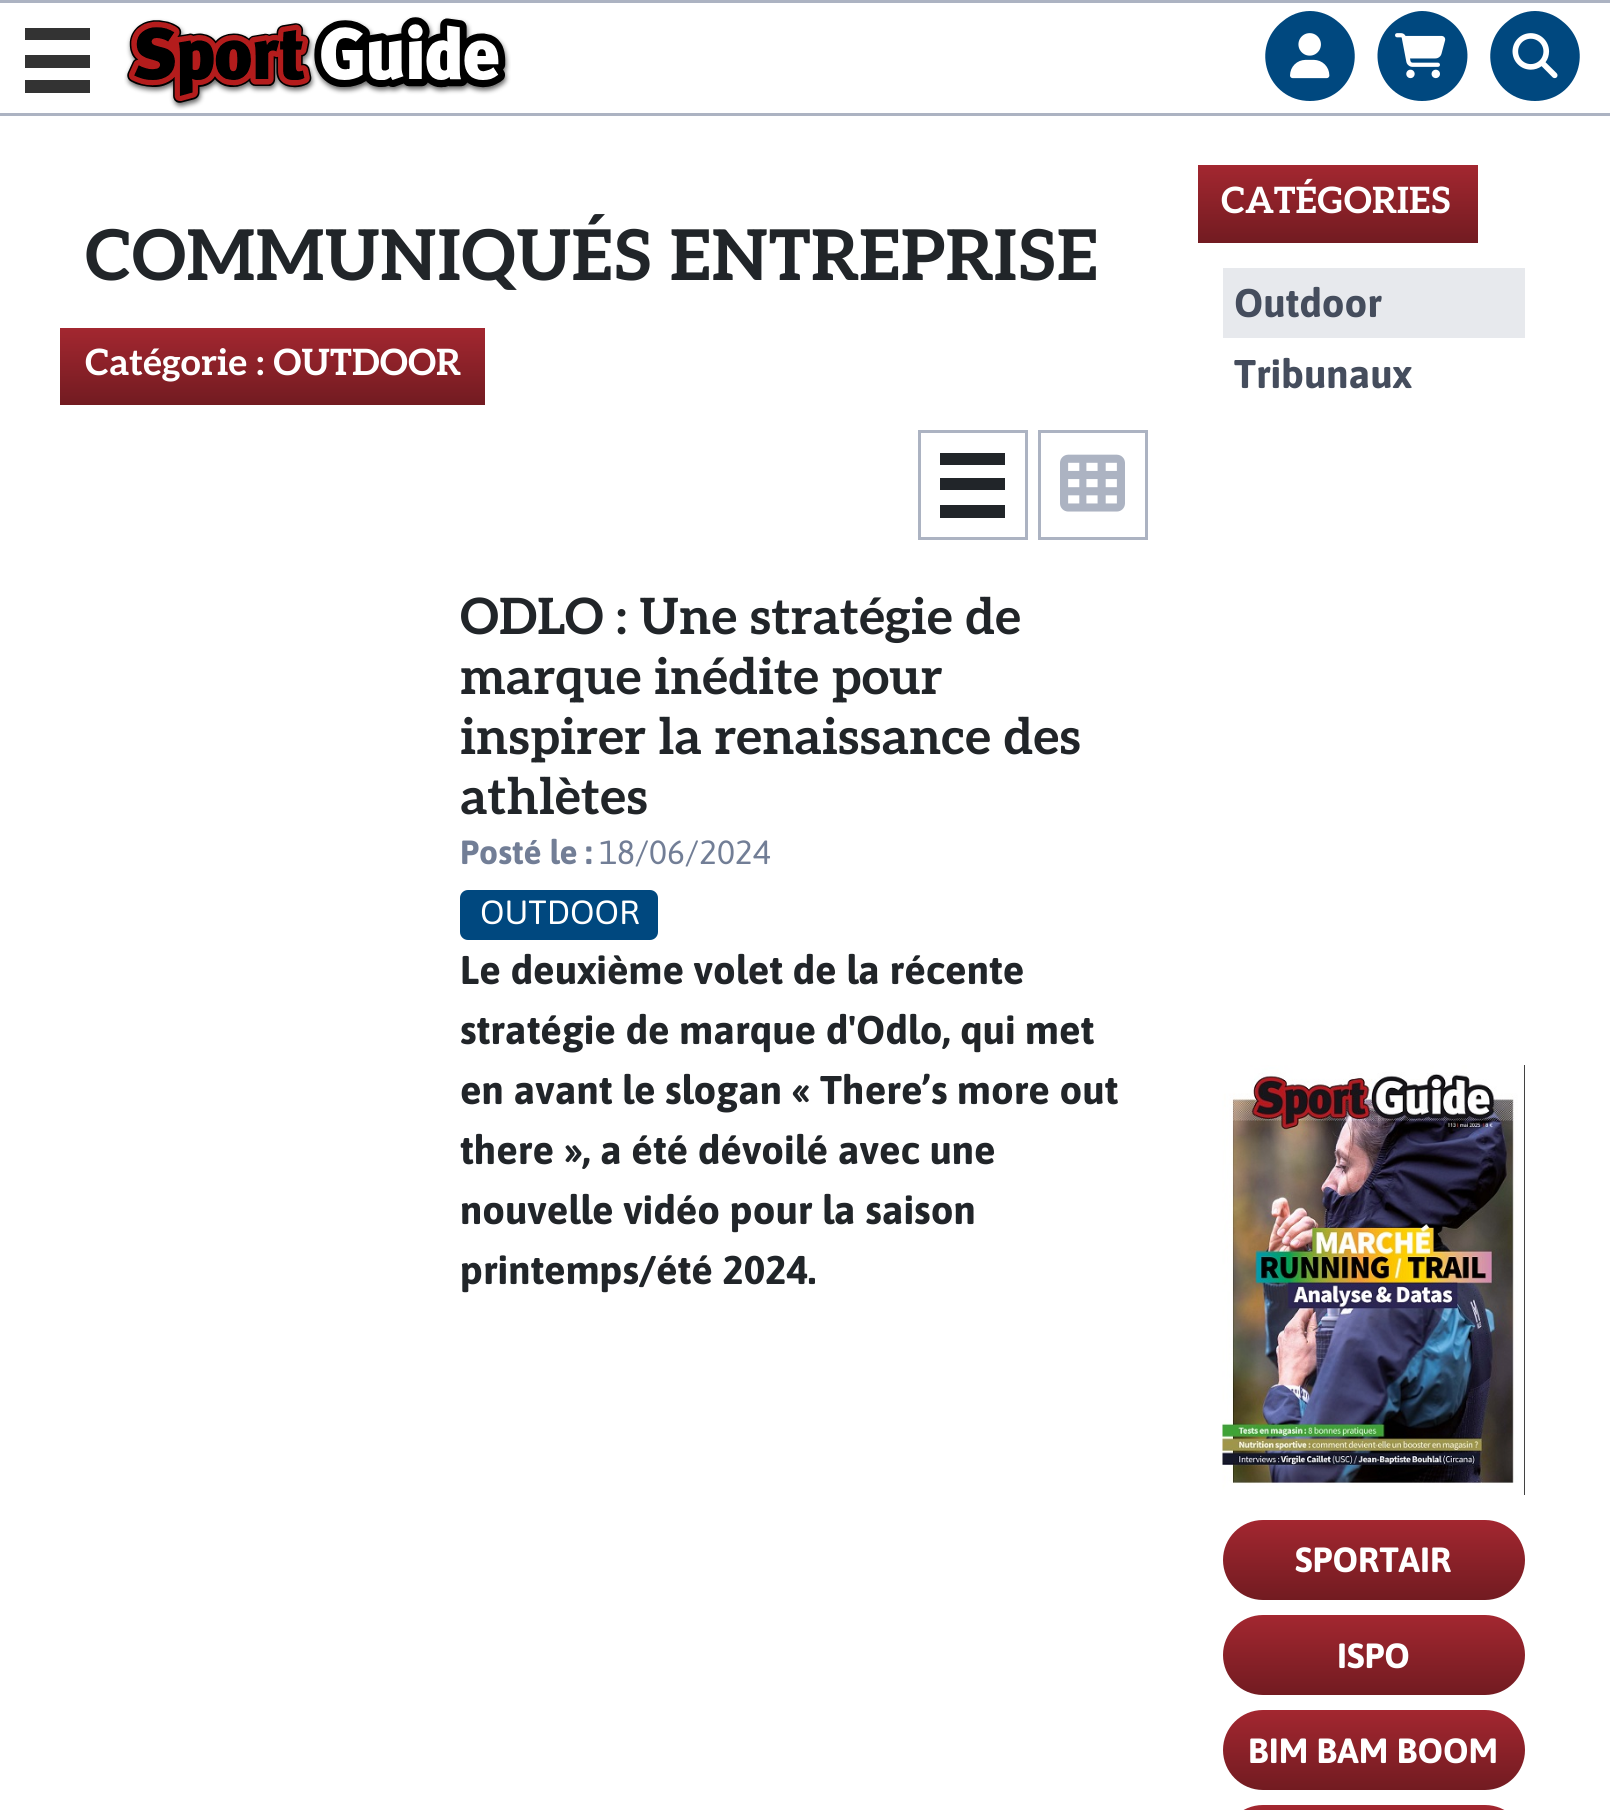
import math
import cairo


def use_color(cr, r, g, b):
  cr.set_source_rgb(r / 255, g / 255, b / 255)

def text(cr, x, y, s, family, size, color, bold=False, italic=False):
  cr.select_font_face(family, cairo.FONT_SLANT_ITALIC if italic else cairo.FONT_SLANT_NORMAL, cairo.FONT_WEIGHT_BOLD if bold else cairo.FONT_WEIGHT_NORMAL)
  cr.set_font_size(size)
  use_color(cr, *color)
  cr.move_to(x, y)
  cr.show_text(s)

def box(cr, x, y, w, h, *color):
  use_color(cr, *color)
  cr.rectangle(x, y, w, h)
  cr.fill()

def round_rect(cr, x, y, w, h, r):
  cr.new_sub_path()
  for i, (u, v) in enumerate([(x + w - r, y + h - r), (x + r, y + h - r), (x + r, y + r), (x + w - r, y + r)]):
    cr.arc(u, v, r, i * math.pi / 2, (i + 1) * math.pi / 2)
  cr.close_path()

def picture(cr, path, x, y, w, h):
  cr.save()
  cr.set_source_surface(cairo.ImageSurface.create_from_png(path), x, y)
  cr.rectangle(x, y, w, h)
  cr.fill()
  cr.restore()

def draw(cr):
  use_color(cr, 255, 255, 255)
  cr.paint()
  box(cr, 0, 0, 1610, 3, 172, 179, 194)
  box(cr, 0, 113, 1610, 3, 172, 179, 194)
  box(cr, 25, 55, 65, 13, 51, 51, 51)
  box(cr, 25, 28, 65, 12, 51, 51, 51)
  box(cr, 25, 80, 65, 13, 51, 51, 51)
  picture(cr, "img_01.png", 124, 16, 387, 94)
  use_color(cr, 0, 72, 127)
  cr.new_path()
  cr.move_to(1310, 101)
  cr.curve_to(1353, 101, 1371, 47, 1337, 21)
  cr.curve_to(1330, 15, 1320, 11, 1310, 11)
  cr.curve_to(1300, 11, 1290, 15, 1283, 21)
  cr.curve_to(1249, 47, 1267, 101, 1310, 101)
  cr.close_path()
  cr.fill()
  picture(cr, "img_02.png", 1290, 33, 40, 46)
  cr.new_path()
  cr.move_to(1422, 101)
  cr.curve_to(1465, 101, 1484, 47, 1450, 21)
  cr.curve_to(1442, 15, 1432, 11, 1422, 11)
  cr.curve_to(1413, 11, 1403, 15, 1395, 21)
  cr.curve_to(1361, 47, 1380, 101, 1422, 101)
  cr.close_path()
  cr.fill()
  picture(cr, "img_03.png", 1395, 33, 51, 46)
  cr.new_path()
  cr.move_to(1535, 101)
  cr.curve_to(1578, 101, 1596, 47, 1562, 21)
  cr.curve_to(1555, 15, 1545, 11, 1535, 11)
  cr.curve_to(1525, 11, 1515, 15, 1508, 21)
  cr.curve_to(1474, 47, 1492, 101, 1535, 101)
  cr.close_path()
  cr.fill()
  picture(cr, "img_04.png", 1512, 33, 46, 46)
  gradient = cairo.LinearGradient(273, 328, 273, 405)
  gradient.add_color_stop_rgba(0, 0.639, 0.153, 0.188, 1)
  gradient.add_color_stop_rgba(1, 0.447, 0.106, 0.129, 1)
  cr.set_source(gradient)
  cr.rectangle(60, 328, 425, 77)
  cr.fill()
  cr.rectangle(919.5, 431.5, 107, 107)
  use_color(cr, 172, 179, 194)
  cr.set_line_width(3)
  cr.stroke()
  box(cr, 940, 478, 65, 12, 33, 37, 41)
  box(cr, 940, 453, 65, 12, 33, 37, 41)
  box(cr, 940, 505, 65, 13, 33, 37, 41)
  cr.rectangle(1039.5, 431.5, 107, 107)
  use_color(cr, 172, 179, 194)
  cr.stroke()
  picture(cr, "img_05.png", 1060, 454, 65, 58)
  use_color(cr, 0, 72, 127)
  round_rect(cr, 460, 890, 198, 50, 8)
  cr.fill()
  gradient = cairo.LinearGradient(1338, 165, 1338, 243)
  gradient.add_color_stop_rgba(0, 0.639, 0.153, 0.188, 1)
  gradient.add_color_stop_rgba(1, 0.447, 0.106, 0.129, 1)
  cr.set_source(gradient)
  cr.rectangle(1198, 165, 280, 78)
  cr.fill()
  box(cr, 1223, 268, 302, 70, 231, 233, 237)
  picture(cr, "img_06.png", 1222, 1065, 303, 430)
  gradient = cairo.LinearGradient(1374, 1520, 1374, 1600)
  gradient.add_color_stop_rgba(0, 0.639, 0.153, 0.188, 1)
  gradient.add_color_stop_rgba(1, 0.447, 0.106, 0.129, 1)
  cr.set_source(gradient)
  round_rect(cr, 1223, 1520, 302, 80, 40)
  cr.fill()
  gradient = cairo.LinearGradient(1374, 1615, 1374, 1695)
  gradient.add_color_stop_rgba(0, 0.639, 0.153, 0.188, 1)
  gradient.add_color_stop_rgba(1, 0.447, 0.106, 0.129, 1)
  cr.set_source(gradient)
  round_rect(cr, 1223, 1615, 302, 80, 40)
  cr.fill()
  gradient = cairo.LinearGradient(1374, 1710, 1374, 1790)
  gradient.add_color_stop_rgba(0, 0.639, 0.153, 0.188, 1)
  gradient.add_color_stop_rgba(1, 0.447, 0.106, 0.129, 1)
  cr.set_source(gradient)
  round_rect(cr, 1223, 1710, 302, 80, 40)
  cr.fill()
  gradient = cairo.LinearGradient(1374, 1805, 1374, 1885)
  gradient.add_color_stop_rgba(0, 0.639, 0.153, 0.188, 1)
  gradient.add_color_stop_rgba(1, 0.447, 0.106, 0.129, 1)
  cr.set_source(gradient)
  round_rect(cr, 1223, 1805, 302, 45, 40)
  cr.fill()
  text(cr, 85, 280, "COMMUNIQUÉS ENTREPRISE", "Aleo", 70, (33, 37, 41), bold=True)
  text(cr, 85, 375, "Catégorie : OUTDOOR", "Aleo", 36.25, (255, 255, 255), bold=True)
  text(cr, 460, 634, "ODLO : Une stratégie de", "Aleo", 50, (33, 37, 41), bold=True)
  text(cr, 460, 694, "marque inédite pour", "Aleo", 50, (33, 37, 41), bold=True)
  text(cr, 460, 754, "inspirer la renaissance des", "Aleo", 50, (33, 37, 41), bold=True)
  text(cr, 460, 814, "athlètes", "Aleo", 50, (33, 37, 41), bold=True)
  text(cr, 460, 864, "Posté le :", "Asap", 33.5, (114, 126, 150), bold=True)
  text(cr, 599, 864, "18/06/2024", "Asap", 33.5, (114, 126, 150))
  text(cr, 480, 924, "OUTDOOR", "Asap", 33.5, (255, 255, 255))
  text(cr, 460, 984, "Le deuxième volet de la récente", "Asap", 40, (33, 37, 41), bold=True)
  text(cr, 460, 1044, "stratégie de marque d'Odlo, qui met", "Asap", 40, (33, 37, 41), bold=True)
  text(cr, 460, 1104, "en avant le slogan « There’s more out", "Asap", 40, (33, 37, 41), bold=True)
  text(cr, 460, 1164, "there », a été dévoilé avec une", "Asap", 40, (33, 37, 41), bold=True)
  text(cr, 460, 1224, "nouvelle vidéo pour la saison", "Asap", 40, (33, 37, 41), bold=True)
  text(cr, 460, 1284, "printemps/été 2024.", "Asap", 40, (33, 37, 41), bold=True)
  text(cr, 1221, 213, "CATÉGORIES", "Aleo", 36.25, (255, 255, 255), bold=True)
  text(cr, 1234, 317, "Outdoor", "Asap", 40, (69, 77, 93), bold=True)
  text(cr, 1234, 388, "Tribunaux", "Asap", 40, (69, 77, 93), bold=True)
  text(cr, 1295, 1572, "SPORTAIR", "Asap", 35, (255, 255, 255), bold=True)
  text(cr, 1337, 1668, "ISPO", "Asap", 35, (255, 255, 255), bold=True)
  text(cr, 1248, 1763, "BIM BAM BOOM", "Asap", 35, (255, 255, 255), bold=True)


surface = cairo.ImageSurface(cairo.FORMAT_RGB24, 1610, 1810)
cr = cairo.Context(surface)
options = cairo.FontOptions()
options.set_hint_metrics(cairo.HINT_METRICS_OFF)
options.set_hint_style(cairo.HINT_STYLE_NONE)
cr.set_font_options(options)
cr.set_miter_limit(4)
draw(cr)
surface.write_to_png("out.png")
